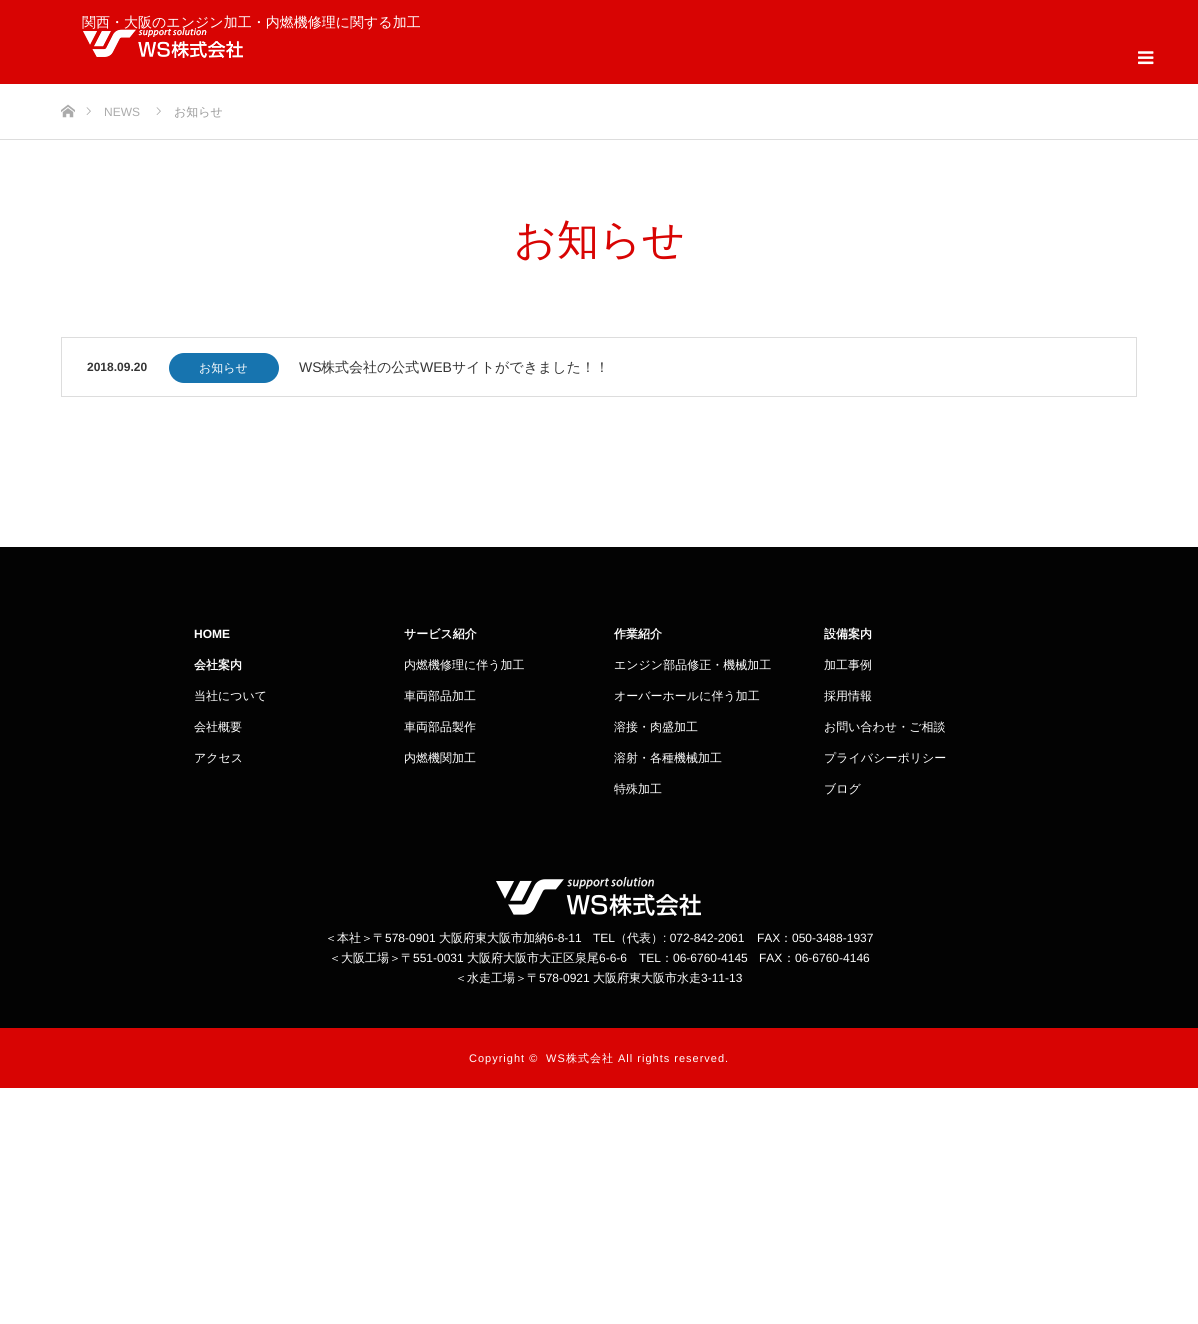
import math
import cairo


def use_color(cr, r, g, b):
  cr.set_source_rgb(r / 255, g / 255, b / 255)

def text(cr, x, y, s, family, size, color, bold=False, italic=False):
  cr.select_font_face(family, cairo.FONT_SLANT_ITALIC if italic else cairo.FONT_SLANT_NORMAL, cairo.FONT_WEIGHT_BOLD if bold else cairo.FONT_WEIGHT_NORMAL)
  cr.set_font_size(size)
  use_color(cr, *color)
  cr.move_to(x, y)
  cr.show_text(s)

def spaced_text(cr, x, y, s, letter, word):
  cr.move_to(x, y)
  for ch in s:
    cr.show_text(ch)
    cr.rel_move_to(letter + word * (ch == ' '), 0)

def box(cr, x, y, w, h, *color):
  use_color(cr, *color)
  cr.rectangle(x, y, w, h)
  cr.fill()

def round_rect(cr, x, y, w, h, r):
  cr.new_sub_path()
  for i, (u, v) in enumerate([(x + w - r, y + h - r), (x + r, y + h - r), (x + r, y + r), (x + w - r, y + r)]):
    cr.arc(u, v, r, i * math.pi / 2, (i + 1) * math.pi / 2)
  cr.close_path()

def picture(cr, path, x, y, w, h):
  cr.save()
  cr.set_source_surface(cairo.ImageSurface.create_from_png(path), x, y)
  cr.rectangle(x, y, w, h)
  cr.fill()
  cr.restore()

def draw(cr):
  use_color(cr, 255, 255, 255)
  cr.paint()
  box(cr, 0, 0, 1198, 84, 216, 4, 3)
  picture(cr, "img_02.png", 1138, 51, 16, 14)
  box(cr, 0, 139, 1198, 1, 221, 221, 221)
  picture(cr, "img_03.png", 61, 104, 14, 14)
  picture(cr, "img_04.png", 86, 107, 5, 8)
  picture(cr, "img_04.png", 156, 107, 5, 8)
  cr.rectangle(61.5, 337.5, 1075, 59)
  cr.set_line_width(1)
  cr.stroke()
  use_color(cr, 23, 116, 175)
  round_rect(cr, 169, 353, 110, 30, 15)
  cr.fill()
  box(cr, 0, 547, 1198, 481, 3, 3, 3)
  picture(cr, "img_05.png", 496, 877, 205, 39)
  box(cr, 0, 1028, 1198, 60, 216, 4, 3)
  text(cr, 82, 27, "関西・大阪のエンジン加工・内燃機修理に関する加工", "WenQuanYi Zen Hei Medium", 14, (255, 255, 255))
  picture(cr, "img_01.png", 83, 28, 160, 30)
  text(cr, 104, 116, "NEWS", "Liberation Sans", 12, (171, 171, 171))
  text(cr, 174, 116, "お知らせ", "WenQuanYi Zen Hei Medium", 12, (154, 154, 154))
  text(cr, 514, 254, "お知らせ", "WenQuanYi Zen Hei Medium", 42, (216, 4, 3))
  text(cr, 87, 371, "2018.09.20", "Liberation Sans", 12, (53, 53, 53), bold=True)
  text(cr, 199, 372, "お知らせ", "WenQuanYi Zen Hei Medium", 12, (255, 255, 255))
  text(cr, 299, 372, "WS", "Liberation Sans", 14, (53, 53, 53))
  text(cr, 321, 372, "株式会社の公式", "WenQuanYi Zen Hei Medium", 14, (53, 53, 53))
  text(cr, 420, 372, "WEB", "Liberation Sans", 14, (53, 53, 53))
  text(cr, 452, 372, "サイトができました！！", "WenQuanYi Zen Hei Medium", 14, (53, 53, 53))
  text(cr, 194, 638, "HOME", "Liberation Sans", 12, (255, 255, 255), bold=True)
  text(cr, 194, 669, "会社案内", "WenQuanYi Zen Hei", 12, (255, 255, 255), bold=True)
  text(cr, 194, 700, "当社について", "WenQuanYi Zen Hei Medium", 12, (255, 255, 255))
  text(cr, 194, 731, "会社概要", "WenQuanYi Zen Hei Medium", 12, (255, 255, 255))
  text(cr, 194, 762, "アクセス", "WenQuanYi Zen Hei Medium", 12, (255, 255, 255))
  text(cr, 404, 638, "サービス紹介", "WenQuanYi Zen Hei", 12, (255, 255, 255), bold=True)
  text(cr, 404, 669, "内燃機修理に伴う加工", "WenQuanYi Zen Hei Medium", 12, (255, 255, 255))
  text(cr, 404, 700, "車両部品加工", "WenQuanYi Zen Hei Medium", 12, (255, 255, 255))
  text(cr, 404, 731, "車両部品製作", "WenQuanYi Zen Hei Medium", 12, (255, 255, 255))
  text(cr, 404, 762, "内燃機関加工", "WenQuanYi Zen Hei Medium", 12, (255, 255, 255))
  text(cr, 614, 638, "作業紹介", "WenQuanYi Zen Hei", 12, (255, 255, 255), bold=True)
  text(cr, 614, 669, "エンジン部品修正・機械加工", "WenQuanYi Zen Hei Medium", 12, (255, 255, 255))
  text(cr, 614, 700, "オーバーホールに伴う加工", "WenQuanYi Zen Hei Medium", 12, (255, 255, 255))
  text(cr, 614, 731, "溶接・肉盛加工", "WenQuanYi Zen Hei Medium", 12, (255, 255, 255))
  text(cr, 614, 762, "溶射・各種機械加工", "WenQuanYi Zen Hei Medium", 12, (255, 255, 255))
  text(cr, 614, 793, "特殊加工", "WenQuanYi Zen Hei Medium", 12, (255, 255, 255))
  text(cr, 824, 638, "設備案内", "WenQuanYi Zen Hei", 12, (255, 255, 255), bold=True)
  text(cr, 824, 669, "加工事例", "WenQuanYi Zen Hei Medium", 12, (255, 255, 255))
  text(cr, 824, 700, "採用情報", "WenQuanYi Zen Hei Medium", 12, (255, 255, 255))
  text(cr, 824, 731, "お問い合わせ・ご相談", "WenQuanYi Zen Hei Medium", 12, (255, 255, 255))
  text(cr, 824, 762, "プライバシーポリシー", "WenQuanYi Zen Hei Medium", 12, (255, 255, 255))
  text(cr, 824, 793, "ブログ", "WenQuanYi Zen Hei Medium", 12, (255, 255, 255))
  text(cr, 325, 942, "＜本社＞〒", "WenQuanYi Zen Hei Medium", 12, (255, 255, 255))
  text(cr, 385, 942, "578-0901", "Liberation Sans", 12, (255, 255, 255))
  text(cr, 439, 942, "大阪府東大阪市加納", "WenQuanYi Zen Hei Medium", 12, (255, 255, 255))
  text(cr, 547, 942, "6-8-11", "Liberation Sans", 12, (255, 255, 255))
  text(cr, 593, 942, "TEL", "Liberation Sans", 12, (255, 255, 255))
  text(cr, 615, 942, "（代表）", "WenQuanYi Zen Hei Medium", 12, (255, 255, 255))
  text(cr, 663, 942, ": 072-842-2061", "Liberation Sans", 12, (255, 255, 255))
  text(cr, 757, 942, "FAX", "Liberation Sans", 12, (255, 255, 255))
  text(cr, 780, 942, "：", "WenQuanYi Zen Hei Medium", 12, (255, 255, 255))
  text(cr, 792, 942, "050-3488-1937", "Liberation Sans", 12, (255, 255, 255))
  text(cr, 329, 962, "＜大阪工場＞〒", "WenQuanYi Zen Hei Medium", 12, (255, 255, 255))
  text(cr, 413, 962, "551-0031", "Liberation Sans", 12, (255, 255, 255))
  text(cr, 467, 962, "大阪府大阪市大正区泉尾", "WenQuanYi Zen Hei Medium", 12, (255, 255, 255))
  text(cr, 599, 962, "6-6-6", "Liberation Sans", 12, (255, 255, 255))
  text(cr, 639, 962, "TEL", "Liberation Sans", 12, (255, 255, 255))
  text(cr, 661, 962, "：", "WenQuanYi Zen Hei Medium", 12, (255, 255, 255))
  text(cr, 673, 962, "06-6760-4145", "Liberation Sans", 12, (255, 255, 255))
  text(cr, 759, 962, "FAX", "Liberation Sans", 12, (255, 255, 255))
  text(cr, 783, 962, "：", "WenQuanYi Zen Hei Medium", 12, (255, 255, 255))
  text(cr, 795, 962, "06-6760-4146", "Liberation Sans", 12, (255, 255, 255))
  text(cr, 455, 982, "＜水走工場＞〒", "WenQuanYi Zen Hei Medium", 12, (255, 255, 255))
  text(cr, 539, 982, "578-0921", "Liberation Sans", 12, (255, 255, 255))
  text(cr, 593, 982, "大阪府東大阪市水走", "WenQuanYi Zen Hei Medium", 12, (255, 255, 255))
  text(cr, 701, 982, "3-11-13", "Liberation Sans", 12, (255, 255, 255))
  cr.set_font_size(11)
  spaced_text(cr, 469, 1062, "Copyright ©", 1, 0)
  spaced_text(cr, 546, 1062, "WS", 1, 0)
  cr.select_font_face("WenQuanYi Zen Hei Medium")
  spaced_text(cr, 566, 1062, "株式会社", 1, 0)
  cr.select_font_face("Liberation Sans")
  spaced_text(cr, 618, 1062, "All rights reserved.", 1, 0)


surface = cairo.ImageSurface(cairo.FORMAT_RGB24, 1198, 1324)
cr = cairo.Context(surface)
options = cairo.FontOptions()
options.set_hint_metrics(cairo.HINT_METRICS_OFF)
options.set_hint_style(cairo.HINT_STYLE_NONE)
cr.set_font_options(options)
cr.set_miter_limit(4)
draw(cr)
surface.write_to_png("out.png")
